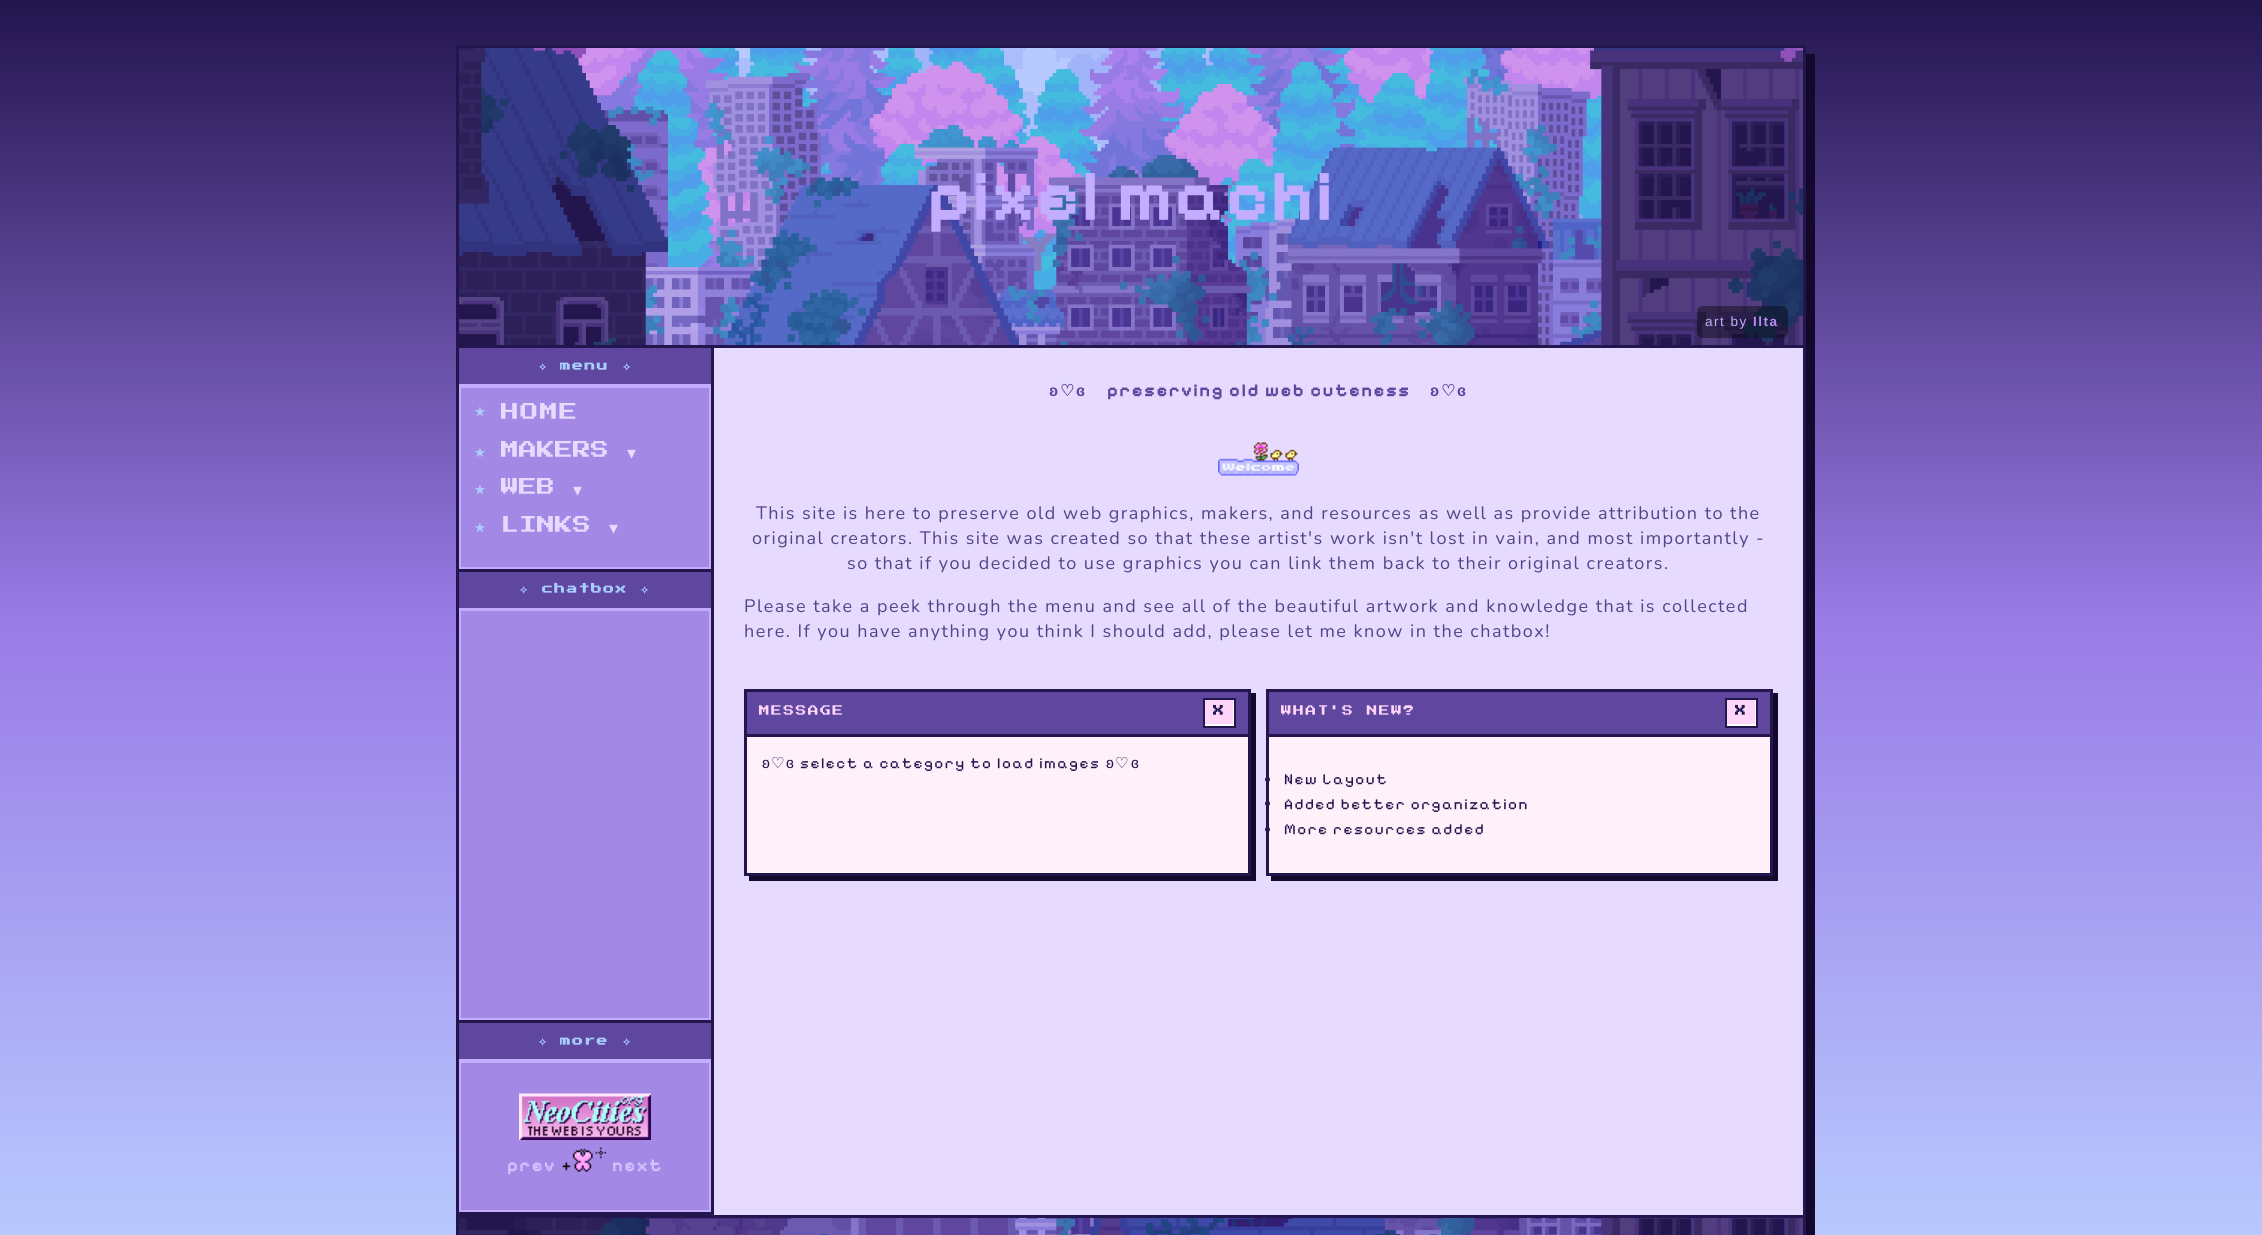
import math
import cairo


def use_color(cr, r, g, b):
  cr.set_source_rgb(r / 255, g / 255, b / 255)

def text(cr, x, y, s, family, size, color, bold=False, italic=False):
  cr.select_font_face(family, cairo.FONT_SLANT_ITALIC if italic else cairo.FONT_SLANT_NORMAL, cairo.FONT_WEIGHT_BOLD if bold else cairo.FONT_WEIGHT_NORMAL)
  cr.set_font_size(size)
  use_color(cr, *color)
  cr.move_to(x, y)
  cr.show_text(s)

def spaced_text(cr, x, y, s, letter, word):
  cr.move_to(x, y)
  for ch in s:
    cr.show_text(ch)
    cr.rel_move_to(letter + word * (ch == ' '), 0)

def box(cr, x, y, w, h, *color):
  use_color(cr, *color)
  cr.rectangle(x, y, w, h)
  cr.fill()

def round_rect(cr, x, y, w, h, r):
  cr.new_sub_path()
  for i, (u, v) in enumerate([(x + w - r, y + h - r), (x + r, y + h - r), (x + r, y + r), (x + w - r, y + r)]):
    cr.arc(u, v, r, i * math.pi / 2, (i + 1) * math.pi / 2)
  cr.close_path()

def picture(cr, path, x, y, w, h):
  cr.save()
  cr.set_source_surface(cairo.ImageSurface.create_from_png(path), x, y)
  cr.rectangle(x, y, w, h)
  cr.fill()
  cr.restore()

def draw(cr):
  use_color(cr, 255, 255, 255)
  cr.paint()
  gradient = cairo.LinearGradient(1131, 0, 1131, 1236)
  gradient.add_color_stop_rgba(0, 0.137, 0.082, 0.306, 1)
  gradient.add_color_stop_rgba(0.5, 0.6, 0.482, 0.902, 1)
  gradient.add_color_stop_rgba(1, 0.722, 0.788, 0.996, 1)
  cr.set_source(gradient)
  cr.rectangle(0, 0, 2262, 1235)
  cr.fill()
  use_color(cr, 19, 9, 45)
  cr.new_path()
  cr.move_to(465, 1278)
  cr.line_to(465, 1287)
  cr.line_to(1815, 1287)
  cr.line_to(1815, 54)
  cr.line_to(1806, 54)
  cr.line_to(1806, 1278)
  cr.close_path()
  cr.fill()
  cr.rectangle(457.5, 46.5, 1347, 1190)
  use_color(cr, 35, 21, 78)
  cr.set_line_width(3)
  cr.stroke()
  picture(cr, "img_01.png", 459, 48, 1344, 297)
  box(cr, 459, 345, 1344, 3, 35, 21, 78)
  cr.set_source_rgba(0, 0, 0, 0.4)
  round_rect(cr, 1697, 306, 91, 32, 6)
  cr.fill()
  box(cr, 461, 388, 248, 822, 163, 136, 230)
  box(cr, 711, 348, 3, 867, 35, 21, 78)
  box(cr, 459, 348, 252, 36, 95, 71, 159)
  box(cr, 459, 384, 252, 2, 194, 173, 255)
  cr.rectangle(460, 387, 250, 181)
  cr.set_line_width(2)
  cr.stroke()
  box(cr, 459, 569, 252, 3, 35, 21, 78)
  box(cr, 459, 572, 252, 36, 95, 71, 159)
  box(cr, 459, 608, 252, 1, 194, 173, 255)
  cr.rectangle(460, 610, 250, 409)
  cr.stroke()
  box(cr, 459, 1020, 252, 3, 35, 21, 78)
  box(cr, 459, 1023, 252, 36, 95, 71, 159)
  box(cr, 459, 1059, 252, 2, 194, 173, 255)
  cr.rectangle(460, 1062, 250, 149)
  cr.stroke()
  box(cr, 459, 1212, 252, 3, 35, 21, 78)
  picture(cr, "img_02.png", 519, 1093, 132, 47)
  picture(cr, "img_03.png", 562, 1147, 44, 25)
  box(cr, 714, 348, 1089, 867, 230, 219, 255)
  picture(cr, "img_04.png", 1218, 442, 81, 34)
  use_color(cr, 19, 9, 45)
  cr.new_path()
  cr.move_to(749, 876)
  cr.line_to(749, 881)
  cr.line_to(1256, 881)
  cr.line_to(1256, 693)
  cr.line_to(1251, 693)
  cr.line_to(1251, 876)
  cr.close_path()
  cr.fill()
  box(cr, 747, 737, 501, 136, 255, 240, 249)
  cr.rectangle(745.5, 690.5, 504, 184)
  use_color(cr, 35, 21, 78)
  cr.set_line_width(3)
  cr.stroke()
  box(cr, 747, 692, 501, 42, 95, 71, 159)
  box(cr, 747, 734, 501, 3, 35, 21, 78)
  box(cr, 1205, 700, 28, 24, 255, 214, 250)
  cr.save()
  cr.rectangle(1205, 699, 30, 27)
  cr.clip()
  use_color(cr, 255, 255, 255)
  cr.set_fill_rule(cairo.FILL_RULE_EVEN_ODD)
  cr.new_path()
  cr.move_to(1056, 550)
  cr.line_to(1383, 550)
  cr.line_to(1383, 874)
  cr.line_to(1056, 874)
  cr.close_path()
  cr.move_to(1203, 698)
  cr.line_to(1233, 698)
  cr.line_to(1233, 724)
  cr.line_to(1203, 724)
  cr.close_path()
  cr.fill()
  cr.restore()
  cr.rectangle(1204, 699, 31, 28)
  use_color(cr, 35, 21, 78)
  cr.set_line_width(2)
  cr.stroke()
  use_color(cr, 19, 9, 45)
  cr.new_path()
  cr.move_to(1271, 876)
  cr.line_to(1271, 881)
  cr.line_to(1778, 881)
  cr.line_to(1778, 693)
  cr.line_to(1773, 693)
  cr.line_to(1773, 876)
  cr.close_path()
  cr.fill()
  box(cr, 1269, 737, 501, 136, 255, 240, 249)
  cr.rectangle(1267.5, 690.5, 504, 184)
  use_color(cr, 35, 21, 78)
  cr.set_line_width(3)
  cr.stroke()
  box(cr, 1269, 692, 501, 42, 95, 71, 159)
  box(cr, 1269, 734, 501, 3, 35, 21, 78)
  box(cr, 1727, 700, 28, 24, 255, 214, 250)
  cr.save()
  cr.rectangle(1727, 699, 30, 27)
  cr.clip()
  use_color(cr, 255, 255, 255)
  cr.set_fill_rule(cairo.FILL_RULE_EVEN_ODD)
  cr.new_path()
  cr.move_to(1578, 550)
  cr.line_to(1905, 550)
  cr.line_to(1905, 874)
  cr.line_to(1578, 874)
  cr.close_path()
  cr.move_to(1725, 698)
  cr.line_to(1755, 698)
  cr.line_to(1755, 724)
  cr.line_to(1725, 724)
  cr.close_path()
  cr.fill()
  cr.restore()
  cr.rectangle(1726, 699, 31, 28)
  use_color(cr, 35, 21, 78)
  cr.set_line_width(2)
  cr.stroke()
  cr.arc(1267.5, 779.5, 2.5, 0, 2 * math.pi)
  cr.fill()
  cr.arc(1267.5, 803.5, 2.5, 0, 2 * math.pi)
  cr.fill()
  cr.arc(1267.5, 829.5, 2.5, 0, 2 * math.pi)
  cr.fill()
  picture(cr, "img_05.png", 459, 1218, 1344, 17)
  box(cr, 459, 1215, 1344, 3, 35, 21, 78)
  cr.select_font_face("Pixelify Sans", cairo.FONT_SLANT_NORMAL, cairo.FONT_WEIGHT_BOLD)
  cr.set_font_size(72)
  use_color(cr, 194, 173, 255)
  spaced_text(cr, 927, 219, "pixel machi", 1.5, 0)
  cr.select_font_face("Liberation Sans")
  cr.set_font_size(13.5)
  spaced_text(cr, 1705, 326, "art by", 1.5, 0)
  cr.select_font_face("Liberation Sans", cairo.FONT_SLANT_NORMAL, cairo.FONT_WEIGHT_BOLD)
  use_color(cr, 189, 136, 242)
  spaced_text(cr, 1753, 326, "Ilta", 1.5, 0)
  cr.select_font_face("DejaVu Sans", cairo.FONT_SLANT_NORMAL, cairo.FONT_WEIGHT_BOLD)
  cr.set_font_size(10.75)
  use_color(cr, 168, 207, 255)
  spaced_text(cr, 538, 371, "✧", 1.5, 0)
  cr.select_font_face("Press Start 2P", cairo.FONT_SLANT_NORMAL, cairo.FONT_WEIGHT_BOLD)
  spaced_text(cr, 560, 371, "menu", 1.5, 0)
  cr.select_font_face("DejaVu Sans", cairo.FONT_SLANT_NORMAL, cairo.FONT_WEIGHT_BOLD)
  spaced_text(cr, 622, 371, "✧", 1.5, 0)
  cr.select_font_face("FreeSans")
  cr.set_font_size(22)
  spaced_text(cr, 474, 418, "⭑", 1.5, 0)
  cr.select_font_face("Press Start 2P")
  cr.set_font_size(18)
  use_color(cr, 230, 219, 255)
  spaced_text(cr, 501, 421, "HOME", 1.5, 0)
  cr.select_font_face("FreeSans")
  cr.set_font_size(22)
  use_color(cr, 168, 207, 255)
  spaced_text(cr, 474, 459, "⭑", 1.5, 0)
  text(cr, 501, 459, "MAKERS", "Press Start 2P", 18, (230, 219, 255))
  text(cr, 627, 459, "▾", "DejaVu Sans", 18, (230, 219, 255))
  cr.select_font_face("FreeSans")
  cr.set_font_size(22)
  use_color(cr, 168, 207, 255)
  spaced_text(cr, 474, 496, "⭑", 1.5, 0)
  text(cr, 501, 496, "WEB", "Press Start 2P", 18, (230, 219, 255))
  text(cr, 573, 496, "▾", "DejaVu Sans", 18, (230, 219, 255))
  cr.select_font_face("FreeSans")
  cr.set_font_size(22)
  use_color(cr, 168, 207, 255)
  spaced_text(cr, 474, 534, "⭑", 1.5, 0)
  text(cr, 501, 534, "LINKS", "Press Start 2P", 18, (230, 219, 255))
  text(cr, 609, 534, "▾", "DejaVu Sans", 18, (230, 219, 255))
  cr.select_font_face("DejaVu Sans", cairo.FONT_SLANT_NORMAL, cairo.FONT_WEIGHT_BOLD)
  cr.set_font_size(10.75)
  use_color(cr, 168, 207, 255)
  spaced_text(cr, 519, 594, "✧", 1.5, 0)
  cr.select_font_face("Press Start 2P", cairo.FONT_SLANT_NORMAL, cairo.FONT_WEIGHT_BOLD)
  spaced_text(cr, 542, 594, "chatbox", 1.5, 0)
  cr.select_font_face("DejaVu Sans", cairo.FONT_SLANT_NORMAL, cairo.FONT_WEIGHT_BOLD)
  spaced_text(cr, 640, 594, "✧", 1.5, 0)
  spaced_text(cr, 538, 1046, "✧", 1.5, 0)
  cr.select_font_face("Press Start 2P", cairo.FONT_SLANT_NORMAL, cairo.FONT_WEIGHT_BOLD)
  spaced_text(cr, 560, 1046, "more", 1.5, 0)
  cr.select_font_face("DejaVu Sans", cairo.FONT_SLANT_NORMAL, cairo.FONT_WEIGHT_BOLD)
  spaced_text(cr, 622, 1046, "✧", 1.5, 0)
  cr.select_font_face("Pixelify Sans", cairo.FONT_SLANT_NORMAL, cairo.FONT_WEIGHT_BOLD)
  cr.set_font_size(18)
  use_color(cr, 209, 193, 255)
  spaced_text(cr, 507, 1171, "prev", 1.5, 0)
  spaced_text(cr, 612, 1171, "next", 1.5, 0)
  cr.select_font_face("Liberation Sans", cairo.FONT_SLANT_NORMAL, cairo.FONT_WEIGHT_BOLD)
  cr.set_font_size(16)
  use_color(cr, 95, 71, 159)
  spaced_text(cr, 1049, 396, "ʚ", 1.5, 0)
  cr.select_font_face("DejaVu Sans", cairo.FONT_SLANT_NORMAL, cairo.FONT_WEIGHT_BOLD)
  spaced_text(cr, 1060, 396, "♡", 1.5, 0)
  cr.select_font_face("Liberation Sans", cairo.FONT_SLANT_NORMAL, cairo.FONT_WEIGHT_BOLD)
  spaced_text(cr, 1076, 396, "ɞ", 1.5, 0)
  cr.select_font_face("Pixelify Sans", cairo.FONT_SLANT_NORMAL, cairo.FONT_WEIGHT_BOLD)
  cr.set_font_size(18)
  spaced_text(cr, 1107, 396, "preserving old web cuteness", 1.5, 0)
  cr.select_font_face("Liberation Sans", cairo.FONT_SLANT_NORMAL, cairo.FONT_WEIGHT_BOLD)
  cr.set_font_size(16)
  spaced_text(cr, 1430, 396, "ʚ", 1.5, 0)
  cr.select_font_face("DejaVu Sans", cairo.FONT_SLANT_NORMAL, cairo.FONT_WEIGHT_BOLD)
  spaced_text(cr, 1441, 396, "♡", 1.5, 0)
  cr.select_font_face("Liberation Sans", cairo.FONT_SLANT_NORMAL, cairo.FONT_WEIGHT_BOLD)
  spaced_text(cr, 1457, 396, "ɞ", 1.5, 0)
  cr.select_font_face("Nunito")
  cr.set_font_size(18)
  use_color(cr, 84, 67, 135)
  spaced_text(cr, 756, 519, "This site is here to preserve old web graphics, makers, and resources as well as provide attribution to the", 1.5, 0)
  spaced_text(cr, 752, 544, "original creators. This site was created so that these artist's work isn't lost in vain, and most importantly -", 1.5, 0)
  spaced_text(cr, 847, 569, "so that if you decided to use graphics you can link them back to their original creators.", 1.5, 0)
  spaced_text(cr, 744, 612, "Please take a peek through the menu and see all of the beautiful artwork and knowledge that is collected", 1.5, 0)
  spaced_text(cr, 744, 637, "here. If you have anything you think I should add, please let me know in the chatbox!", 1.5, 0)
  cr.select_font_face("Press Start 2P")
  cr.set_font_size(10.75)
  use_color(cr, 255, 214, 250)
  spaced_text(cr, 759, 716, "MESSAGE", 1.5, 0)
  cr.select_font_face("Press Start 2P", cairo.FONT_SLANT_NORMAL, cairo.FONT_WEIGHT_BOLD)
  use_color(cr, 35, 21, 78)
  spaced_text(cr, 1213, 716, "X", 1.5, 0)
  cr.select_font_face("Liberation Sans")
  cr.set_font_size(15.25)
  spaced_text(cr, 762, 768, "ʚ", 1.5, 0)
  cr.select_font_face("DejaVu Sans")
  spaced_text(cr, 771, 768, "♡", 1.5, 0)
  cr.select_font_face("Liberation Sans")
  spaced_text(cr, 786, 768, "ɞ", 1.5, 0)
  cr.select_font_face("Pixelify Sans")
  spaced_text(cr, 800, 768, "select a category to load images", 1.5, 0)
  cr.select_font_face("Liberation Sans")
  spaced_text(cr, 1106, 768, "ʚ", 1.5, 0)
  cr.select_font_face("DejaVu Sans")
  spaced_text(cr, 1115, 768, "♡", 1.5, 0)
  cr.select_font_face("Liberation Sans")
  spaced_text(cr, 1131, 768, "ɞ", 1.5, 0)
  cr.select_font_face("Press Start 2P")
  cr.set_font_size(10.75)
  use_color(cr, 255, 214, 250)
  spaced_text(cr, 1281, 716, "WHAT'S NEW?", 1.5, 0)
  cr.select_font_face("Press Start 2P", cairo.FONT_SLANT_NORMAL, cairo.FONT_WEIGHT_BOLD)
  use_color(cr, 35, 21, 78)
  spaced_text(cr, 1735, 716, "X", 1.5, 0)
  cr.select_font_face("Pixelify Sans")
  cr.set_font_size(15.25)
  spaced_text(cr, 1284, 784, "New Layout", 1.5, 0)
  spaced_text(cr, 1284, 809, "Added better organization", 1.5, 0)
  spaced_text(cr, 1284, 834, "More resources added", 1.5, 0)


surface = cairo.ImageSurface(cairo.FORMAT_RGB24, 2262, 1235)
cr = cairo.Context(surface)
options = cairo.FontOptions()
options.set_hint_metrics(cairo.HINT_METRICS_OFF)
options.set_hint_style(cairo.HINT_STYLE_NONE)
cr.set_font_options(options)
cr.set_miter_limit(4)
draw(cr)
surface.write_to_png("out.png")
